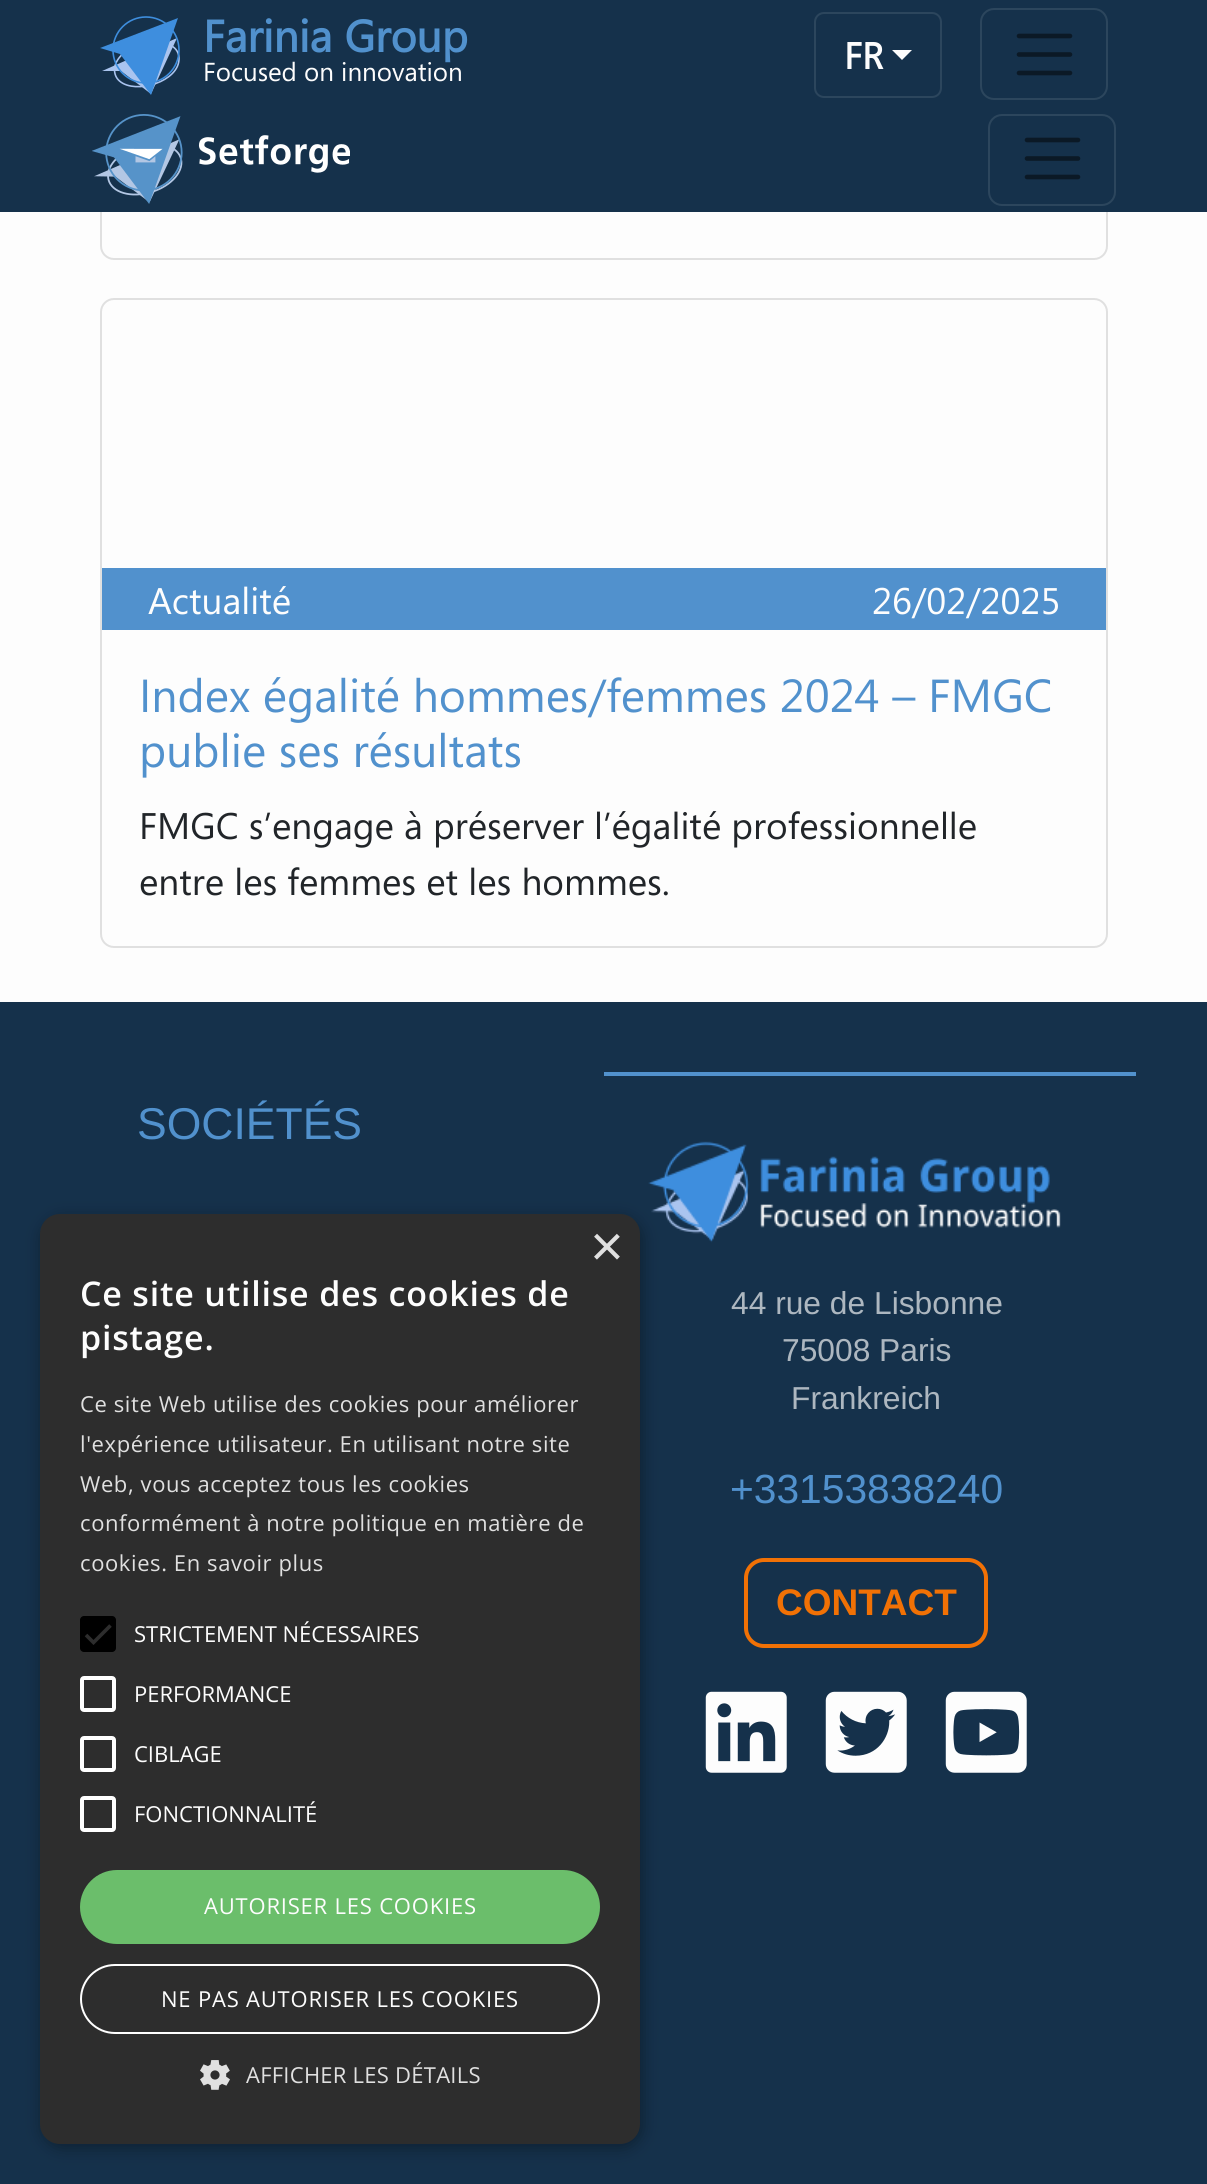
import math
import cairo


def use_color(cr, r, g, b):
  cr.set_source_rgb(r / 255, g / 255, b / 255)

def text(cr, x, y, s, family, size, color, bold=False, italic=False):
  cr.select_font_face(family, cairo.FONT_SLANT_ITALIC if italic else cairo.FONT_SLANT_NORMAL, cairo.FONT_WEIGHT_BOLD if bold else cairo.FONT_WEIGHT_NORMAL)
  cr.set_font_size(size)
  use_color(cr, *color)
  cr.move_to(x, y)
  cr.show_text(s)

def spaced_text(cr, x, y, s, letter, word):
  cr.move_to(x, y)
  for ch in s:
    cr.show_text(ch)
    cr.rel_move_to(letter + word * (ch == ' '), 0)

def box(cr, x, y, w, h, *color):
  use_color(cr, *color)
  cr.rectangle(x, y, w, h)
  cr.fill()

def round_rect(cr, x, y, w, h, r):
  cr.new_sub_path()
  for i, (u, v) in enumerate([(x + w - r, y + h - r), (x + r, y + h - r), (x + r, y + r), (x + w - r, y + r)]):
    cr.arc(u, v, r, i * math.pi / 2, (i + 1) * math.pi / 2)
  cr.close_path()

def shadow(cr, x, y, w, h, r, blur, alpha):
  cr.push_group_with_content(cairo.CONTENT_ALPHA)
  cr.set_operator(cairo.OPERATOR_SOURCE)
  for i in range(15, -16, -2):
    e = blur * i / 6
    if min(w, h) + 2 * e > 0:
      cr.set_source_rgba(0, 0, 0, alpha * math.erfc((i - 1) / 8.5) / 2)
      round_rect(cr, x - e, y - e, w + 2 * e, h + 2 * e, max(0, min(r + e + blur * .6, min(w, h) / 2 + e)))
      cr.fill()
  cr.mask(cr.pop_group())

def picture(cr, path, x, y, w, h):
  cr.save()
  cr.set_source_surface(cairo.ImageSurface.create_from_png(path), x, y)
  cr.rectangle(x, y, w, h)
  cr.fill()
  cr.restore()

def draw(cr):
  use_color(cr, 253, 253, 253)
  cr.paint()
  round_rect(cr, 101, -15, 1006, 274, 13)
  use_color(cr, 224, 224, 224)
  cr.stroke()
  box(cr, 0, 0, 1207, 212, 21, 49, 75)
  use_color(cr, 170, 196, 239)
  cr.set_fill_rule(cairo.FILL_RULE_EVEN_ODD)
  cr.new_path()
  cr.move_to(177, 38)
  cr.line_to(102, 71)
  cr.line_to(121, 71)
  cr.line_to(151, 94)
  cr.close_path()
  cr.fill()
  cr.new_path()
  cr.move_to(114.5, 69.5)
  cr.curve_to(116, 41.5, 178, 31, 179, 58)
  cr.curve_to(180, 81.5, 135.5, 95, 119.5, 81)
  cr.curve_to(116, 78, 114.5, 74, 114.5, 69.5)
  cr.close_path()
  cr.set_line_width(1.6)
  cr.stroke()
  use_color(cr, 62, 142, 222)
  cr.new_path()
  cr.move_to(120, 54)
  cr.line_to(151, 95)
  cr.line_to(178, 18)
  cr.line_to(100, 48)
  cr.close_path()
  cr.fill()
  cr.arc(146, 50, 33, 0, 2 * math.pi)
  cr.stroke()
  round_rect(cr, 815, 13, 126, 84, 9)
  use_color(cr, 44, 70, 93)
  cr.set_line_width(2)
  cr.stroke()
  use_color(cr, 253, 253, 253)
  cr.set_fill_rule(cairo.FILL_RULE_WINDING)
  cr.new_path()
  cr.move_to(892, 50)
  cr.line_to(912, 50)
  cr.line_to(902, 60)
  cr.close_path()
  cr.fill()
  round_rect(cr, 981, 9, 126, 90, 13)
  use_color(cr, 44, 70, 93)
  cr.stroke()
  cr.new_path()
  cr.move_to(1019, 36)
  cr.line_to(1070, 36)
  cr.move_to(1019, 54.5)
  cr.line_to(1070, 54.5)
  cr.move_to(1019, 73)
  cr.line_to(1070, 73)
  use_color(cr, 11, 25, 38)
  cr.set_line_width(4.6)
  cr.set_line_cap(cairo.LINE_CAP_ROUND)
  cr.stroke()
  picture(cr, "img_01.png", 92, 114, 258, 90)
  round_rect(cr, 989, 115, 126, 90, 13)
  use_color(cr, 44, 70, 93)
  cr.set_line_width(2)
  cr.set_line_cap(cairo.LINE_CAP_BUTT)
  cr.stroke()
  cr.new_path()
  cr.move_to(1027, 140)
  cr.line_to(1078, 140)
  cr.move_to(1027, 158.5)
  cr.line_to(1078, 158.5)
  cr.move_to(1027, 177)
  cr.line_to(1078, 177)
  use_color(cr, 11, 25, 38)
  cr.set_line_width(4.6)
  cr.set_line_cap(cairo.LINE_CAP_ROUND)
  cr.stroke()
  round_rect(cr, 101, 299, 1006, 648, 13)
  use_color(cr, 224, 224, 224)
  cr.set_line_width(2)
  cr.set_line_cap(cairo.LINE_CAP_BUTT)
  cr.stroke()
  box(cr, 102, 568, 1004, 62, 81, 145, 205)
  box(cr, 0, 1002, 1207, 1182, 21, 49, 75)
  box(cr, 604, 1072, 532, 4, 81, 145, 205)
  picture(cr, "img_02.png", 648, 1141, 413, 102)
  round_rect(cr, 746, 1560, 240, 86, 18)
  use_color(cr, 241, 113, 5)
  cr.set_line_width(4)
  cr.stroke()
  picture(cr, "img_03.png", 705, 1691, 82, 82)
  picture(cr, "img_04.png", 825, 1691, 82, 82)
  picture(cr, "img_05.png", 945, 1691, 82, 82)
  use_color(cr, 0, 0, 0)
  shadow(cr, 42, 1218, 600, 930, 20, 8, 0.35)
  use_color(cr, 45, 45, 45)
  round_rect(cr, 40, 1214, 600, 930, 20)
  cr.fill()
  use_color(cr, 0, 0, 0)
  round_rect(cr, 80, 1616, 36, 36, 4)
  cr.fill()
  cr.new_path()
  cr.move_to(86, 1635)
  cr.line_to(93.5, 1642.5)
  cr.line_to(110.5, 1625.5)
  use_color(cr, 45, 45, 45)
  cr.set_line_width(3.6)
  cr.stroke()
  round_rect(cr, 82, 1678, 32, 32, 2)
  use_color(cr, 255, 255, 255)
  cr.set_line_width(4)
  cr.stroke()
  round_rect(cr, 82, 1738, 32, 32, 2)
  cr.stroke()
  round_rect(cr, 82, 1798, 32, 32, 2)
  cr.stroke()
  use_color(cr, 107, 190, 107)
  round_rect(cr, 80, 1870, 520, 74, 37)
  cr.fill()
  round_rect(cr, 81, 1965, 518, 68, 34)
  use_color(cr, 255, 255, 255)
  cr.set_line_width(2)
  cr.stroke()
  picture(cr, "img_06.png", 200, 2060, 30, 30)
  text(cr, 203, 52, "Farinia Group", "Segoe UI", 44.5, (81, 145, 205), bold=True)
  text(cr, 203, 81, "Focused on innovation", "Segoe UI", 26, (253, 253, 253))
  text(cr, 844, 69, "FR", "Segoe UI", 37, (253, 253, 253), bold=True)
  text(cr, 148, 614, "Actualité", "Segoe UI", 37, (253, 253, 253))
  text(cr, 872, 614, "26/02/2025", "Segoe UI", 37, (253, 253, 253))
  text(cr, 139, 712, "Index égalité hommes/femmes 2024 – FMGC", "Segoe UI", 46.25, (81, 145, 205))
  text(cr, 139, 767, "publie ses résultats", "Segoe UI", 46.25, (81, 145, 205))
  text(cr, 139, 839, "FMGC s’engage à préserver l’égalité professionnelle", "Segoe UI", 37, (33, 37, 41))
  text(cr, 139, 895, "entre les femmes et les hommes.", "Segoe UI", 37, (33, 37, 41))
  text(cr, 137, 1139, "SOCIÉTÉS", "Liberation Sans", 44.5, (81, 145, 205))
  text(cr, 731, 1314, "44 rue de Lisbonne", "Liberation Sans", 31.75, (173, 183, 192))
  text(cr, 782, 1361, "75008 Paris", "Liberation Sans", 31.75, (173, 183, 192))
  text(cr, 791, 1409, "Frankreich", "Liberation Sans", 31.75, (173, 183, 192))
  text(cr, 730, 1503, "+33153838240", "Liberation Sans", 40.75, (81, 145, 205))
  text(cr, 776, 1615, "CONTACT", "Liberation Sans", 37, (241, 113, 5), bold=True)
  text(cr, 590, 1266, "×", "Liberation Sans", 58, (224, 224, 224))
  cr.select_font_face("Open Sans SemiBold")
  cr.set_font_size(34)
  use_color(cr, 253, 253, 253)
  spaced_text(cr, 80, 1306, "Ce site utilise des cookies de", 0.8, 0)
  spaced_text(cr, 80, 1350, "pistage.", 0.8, 0)
  cr.select_font_face("Open Sans")
  cr.set_font_size(22)
  use_color(cr, 224, 224, 224)
  spaced_text(cr, 80, 1412, "Ce site Web utilise des cookies pour améliorer", 0.6, 0)
  spaced_text(cr, 80, 1452, "l'expérience utilisateur. En utilisant notre site", 0.6, 0)
  spaced_text(cr, 80, 1492, "Web, vous acceptez tous les cookies", 0.6, 0)
  spaced_text(cr, 80, 1531, "conformément à notre politique en matière de", 0.6, 0)
  spaced_text(cr, 80, 1571, "cookies. En savoir plus", 0.6, 0)
  text(cr, 134, 1642, "STRICTEMENT NÉCESSAIRES", "Open Sans", 22, (253, 253, 253))
  text(cr, 134, 1702, "PERFORMANCE", "Open Sans", 22, (253, 253, 253))
  text(cr, 134, 1762, "CIBLAGE", "Open Sans", 22, (253, 253, 253))
  text(cr, 134, 1822, "FONCTIONNALITÉ", "Open Sans", 22, (253, 253, 253))
  spaced_text(cr, 204, 1914, "AUTORISER LES COOKIES", 0.8, 0)
  spaced_text(cr, 161, 2007, "NE PAS AUTORISER LES COOKIES", 0.8, 0)
  use_color(cr, 224, 224, 224)
  spaced_text(cr, 246, 2083, "AFFICHER LES DÉTAILS", 0.25, 0)


surface = cairo.ImageSurface(cairo.FORMAT_RGB24, 1207, 2184)
cr = cairo.Context(surface)
options = cairo.FontOptions()
options.set_hint_metrics(cairo.HINT_METRICS_OFF)
options.set_hint_style(cairo.HINT_STYLE_NONE)
cr.set_font_options(options)
cr.set_miter_limit(4)
draw(cr)
surface.write_to_png("out.png")
